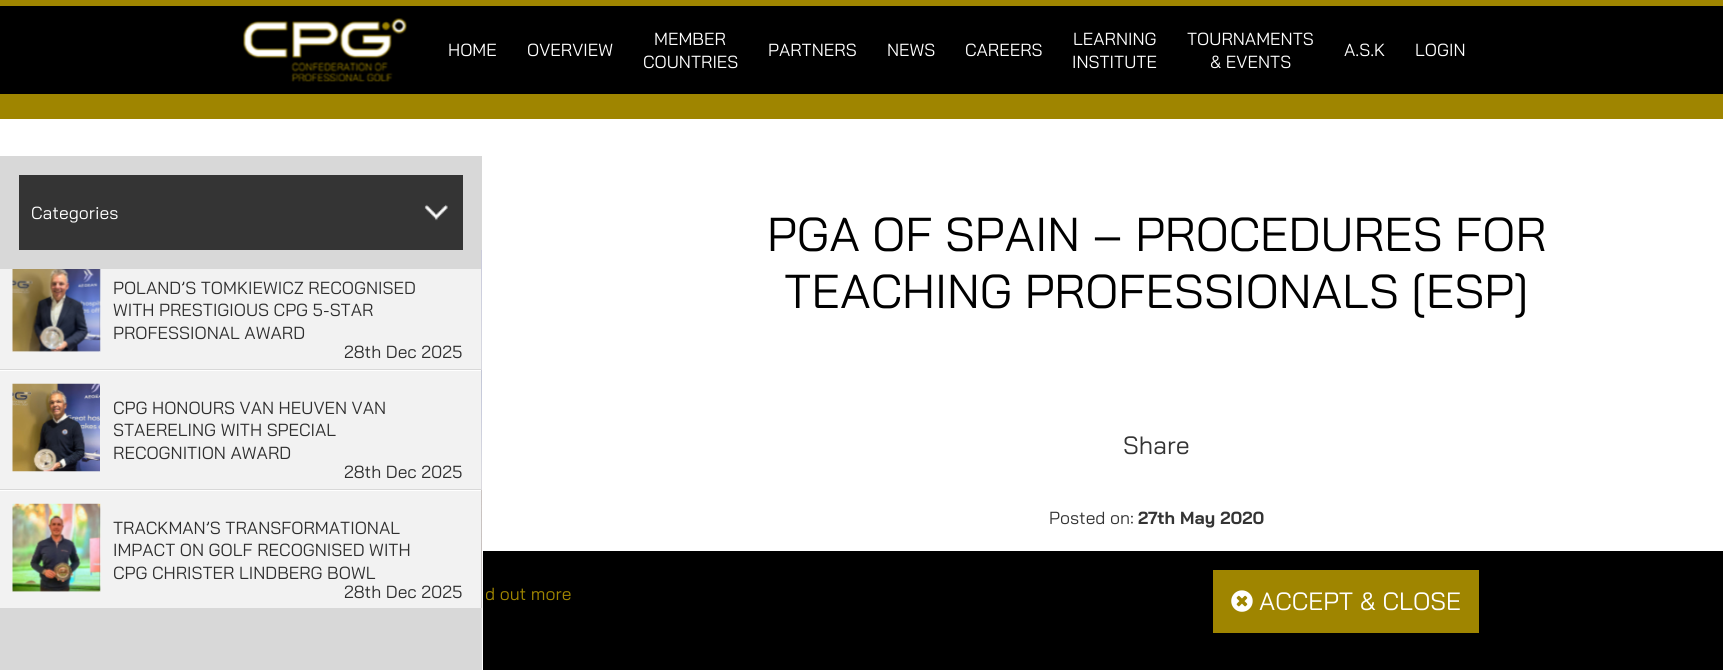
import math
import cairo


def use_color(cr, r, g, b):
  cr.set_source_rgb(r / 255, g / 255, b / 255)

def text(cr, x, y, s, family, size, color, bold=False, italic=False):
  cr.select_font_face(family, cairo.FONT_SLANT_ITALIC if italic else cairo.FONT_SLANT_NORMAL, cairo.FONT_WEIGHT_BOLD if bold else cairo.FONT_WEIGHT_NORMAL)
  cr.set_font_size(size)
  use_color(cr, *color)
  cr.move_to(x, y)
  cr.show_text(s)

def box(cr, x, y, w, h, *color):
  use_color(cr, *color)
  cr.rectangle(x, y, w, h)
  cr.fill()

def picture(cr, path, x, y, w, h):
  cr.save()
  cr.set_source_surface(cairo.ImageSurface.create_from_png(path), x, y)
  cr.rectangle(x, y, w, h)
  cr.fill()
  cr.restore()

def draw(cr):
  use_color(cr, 255, 255, 255)
  cr.paint()
  box(cr, 0, 6, 1723, 88, 0, 0, 0)
  box(cr, 0, 0, 1723, 6, 159, 133, 0)
  picture(cr, "img_01.png", 243, 18, 164, 64)
  box(cr, 0, 94, 1723, 25, 159, 133, 0)
  box(cr, 481, 156, 1, 514, 216, 216, 216)
  box(cr, 0, 156, 481, 113, 216, 216, 216)
  box(cr, 19, 175, 444, 75, 52, 52, 52)
  picture(cr, "img_02.png", 424, 204, 24, 17)
  picture(cr, "img_03.png", 481, 250, 1, 120)
  box(cr, 0, 369, 481, 1, 216, 216, 216)
  box(cr, 0, 269, 481, 100, 242, 242, 242)
  box(cr, 13, 269, 87, 82, 128, 128, 128)
  picture(cr, "img_04.png", 12, 269, 89, 83)
  picture(cr, "img_05.png", 481, 370, 1, 120)
  box(cr, 0, 489, 481, 1, 216, 216, 216)
  box(cr, 0, 371, 481, 118, 242, 242, 242)
  picture(cr, "img_06.png", 12, 383, 88, 89)
  picture(cr, "img_07.png", 481, 490, 1, 118)
  box(cr, 0, 491, 481, 117, 242, 242, 242)
  box(cr, 13, 504, 87, 87, 128, 128, 128)
  picture(cr, "img_08.png", 12, 503, 89, 89)
  box(cr, 0, 608, 481, 62, 216, 216, 216)
  box(cr, 483, 551, 1240, 119, 0, 0, 0)
  box(cr, 1213, 570, 266, 63, 159, 133, 0)
  picture(cr, "img_09.png", 1231, 590, 22, 22)
  text(cr, 448, 56, "HOME", "Bai Jamjuree", 17.5, (255, 255, 255))
  text(cr, 527, 56, "OVERVIEW", "Bai Jamjuree", 17.5, (255, 255, 255))
  text(cr, 654, 45, "MEMBER", "Bai Jamjuree", 17.5, (255, 255, 255))
  text(cr, 643, 68, "COUNTRIES", "Bai Jamjuree", 17.5, (255, 255, 255))
  text(cr, 768, 56, "PARTNERS", "Bai Jamjuree", 17.5, (255, 255, 255))
  text(cr, 887, 56, "NEWS", "Bai Jamjuree", 17.5, (255, 255, 255))
  text(cr, 965, 56, "CAREERS", "Bai Jamjuree", 17.5, (255, 255, 255))
  text(cr, 1073, 45, "LEARNING", "Bai Jamjuree", 17.5, (255, 255, 255))
  text(cr, 1072, 68, "INSTITUTE", "Bai Jamjuree", 17.5, (255, 255, 255))
  text(cr, 1187, 45, "TOURNAMENTS", "Bai Jamjuree", 17.5, (255, 255, 255))
  text(cr, 1210, 68, "& EVENTS", "Bai Jamjuree", 17.5, (255, 255, 255))
  text(cr, 1344, 56, "A.S.K", "Bai Jamjuree", 17.5, (255, 255, 255))
  text(cr, 1415, 56, "LOGIN", "Bai Jamjuree", 17.5, (255, 255, 255))
  text(cr, 31, 219, "Categories", "Bai Jamjuree", 17.5, (255, 255, 255))
  text(cr, 113, 294, "POLAND’S TOMKIEWICZ RECOGNISED", "Bai Jamjuree", 17.5, (46, 46, 46))
  text(cr, 113, 316, "WITH PRESTIGIOUS CPG 5-STAR", "Bai Jamjuree", 17.5, (46, 46, 46))
  text(cr, 113, 339, "PROFESSIONAL AWARD", "Bai Jamjuree", 17.5, (46, 46, 46))
  text(cr, 344, 358, "28th Dec 2025", "Bai Jamjuree", 17.5, (46, 46, 46))
  text(cr, 113, 414, "CPG HONOURS VAN HEUVEN VAN", "Bai Jamjuree", 17.5, (46, 46, 46))
  text(cr, 113, 436, "STAERELING WITH SPECIAL", "Bai Jamjuree", 17.5, (46, 46, 46))
  text(cr, 113, 459, "RECOGNITION AWARD", "Bai Jamjuree", 17.5, (46, 46, 46))
  text(cr, 344, 478, "28th Dec 2025", "Bai Jamjuree", 17.5, (46, 46, 46))
  text(cr, 113, 534, "TRACKMAN’S TRANSFORMATIONAL", "Bai Jamjuree", 17.5, (46, 46, 46))
  text(cr, 113, 556, "IMPACT ON GOLF RECOGNISED WITH", "Bai Jamjuree", 17.5, (46, 46, 46))
  text(cr, 113, 579, "CPG CHRISTER LINDBERG BOWL", "Bai Jamjuree", 17.5, (46, 46, 46))
  text(cr, 344, 598, "28th Dec 2025", "Bai Jamjuree", 17.5, (46, 46, 46))
  text(cr, 767, 251, "PGA OF SPAIN – PROCEDURES FOR", "Bai Jamjuree", 47.5, (0, 0, 0))
  text(cr, 784, 308, "TEACHING PROFESSIONALS [ESP]", "Bai Jamjuree", 47.5, (0, 0, 0))
  text(cr, 1123, 454, "Share", "Bai Jamjuree", 25, (52, 52, 52))
  text(cr, 1049, 524, "Posted on:", "Bai Jamjuree", 17.5, (52, 52, 52))
  text(cr, 1138, 524, "27th May 2020", "Bai Jamjuree", 17.5, (52, 52, 52), bold=True)
  text(cr, 485, 600, "d out more", "Bai Jamjuree", 17.5, (159, 133, 0))
  text(cr, 1259, 610, "ACCEPT & CLOSE", "Bai Jamjuree", 25, (255, 255, 255))


surface = cairo.ImageSurface(cairo.FORMAT_RGB24, 1723, 670)
cr = cairo.Context(surface)
options = cairo.FontOptions()
options.set_hint_metrics(cairo.HINT_METRICS_OFF)
options.set_hint_style(cairo.HINT_STYLE_NONE)
cr.set_font_options(options)
cr.set_miter_limit(4)
draw(cr)
surface.write_to_png("out.png")
